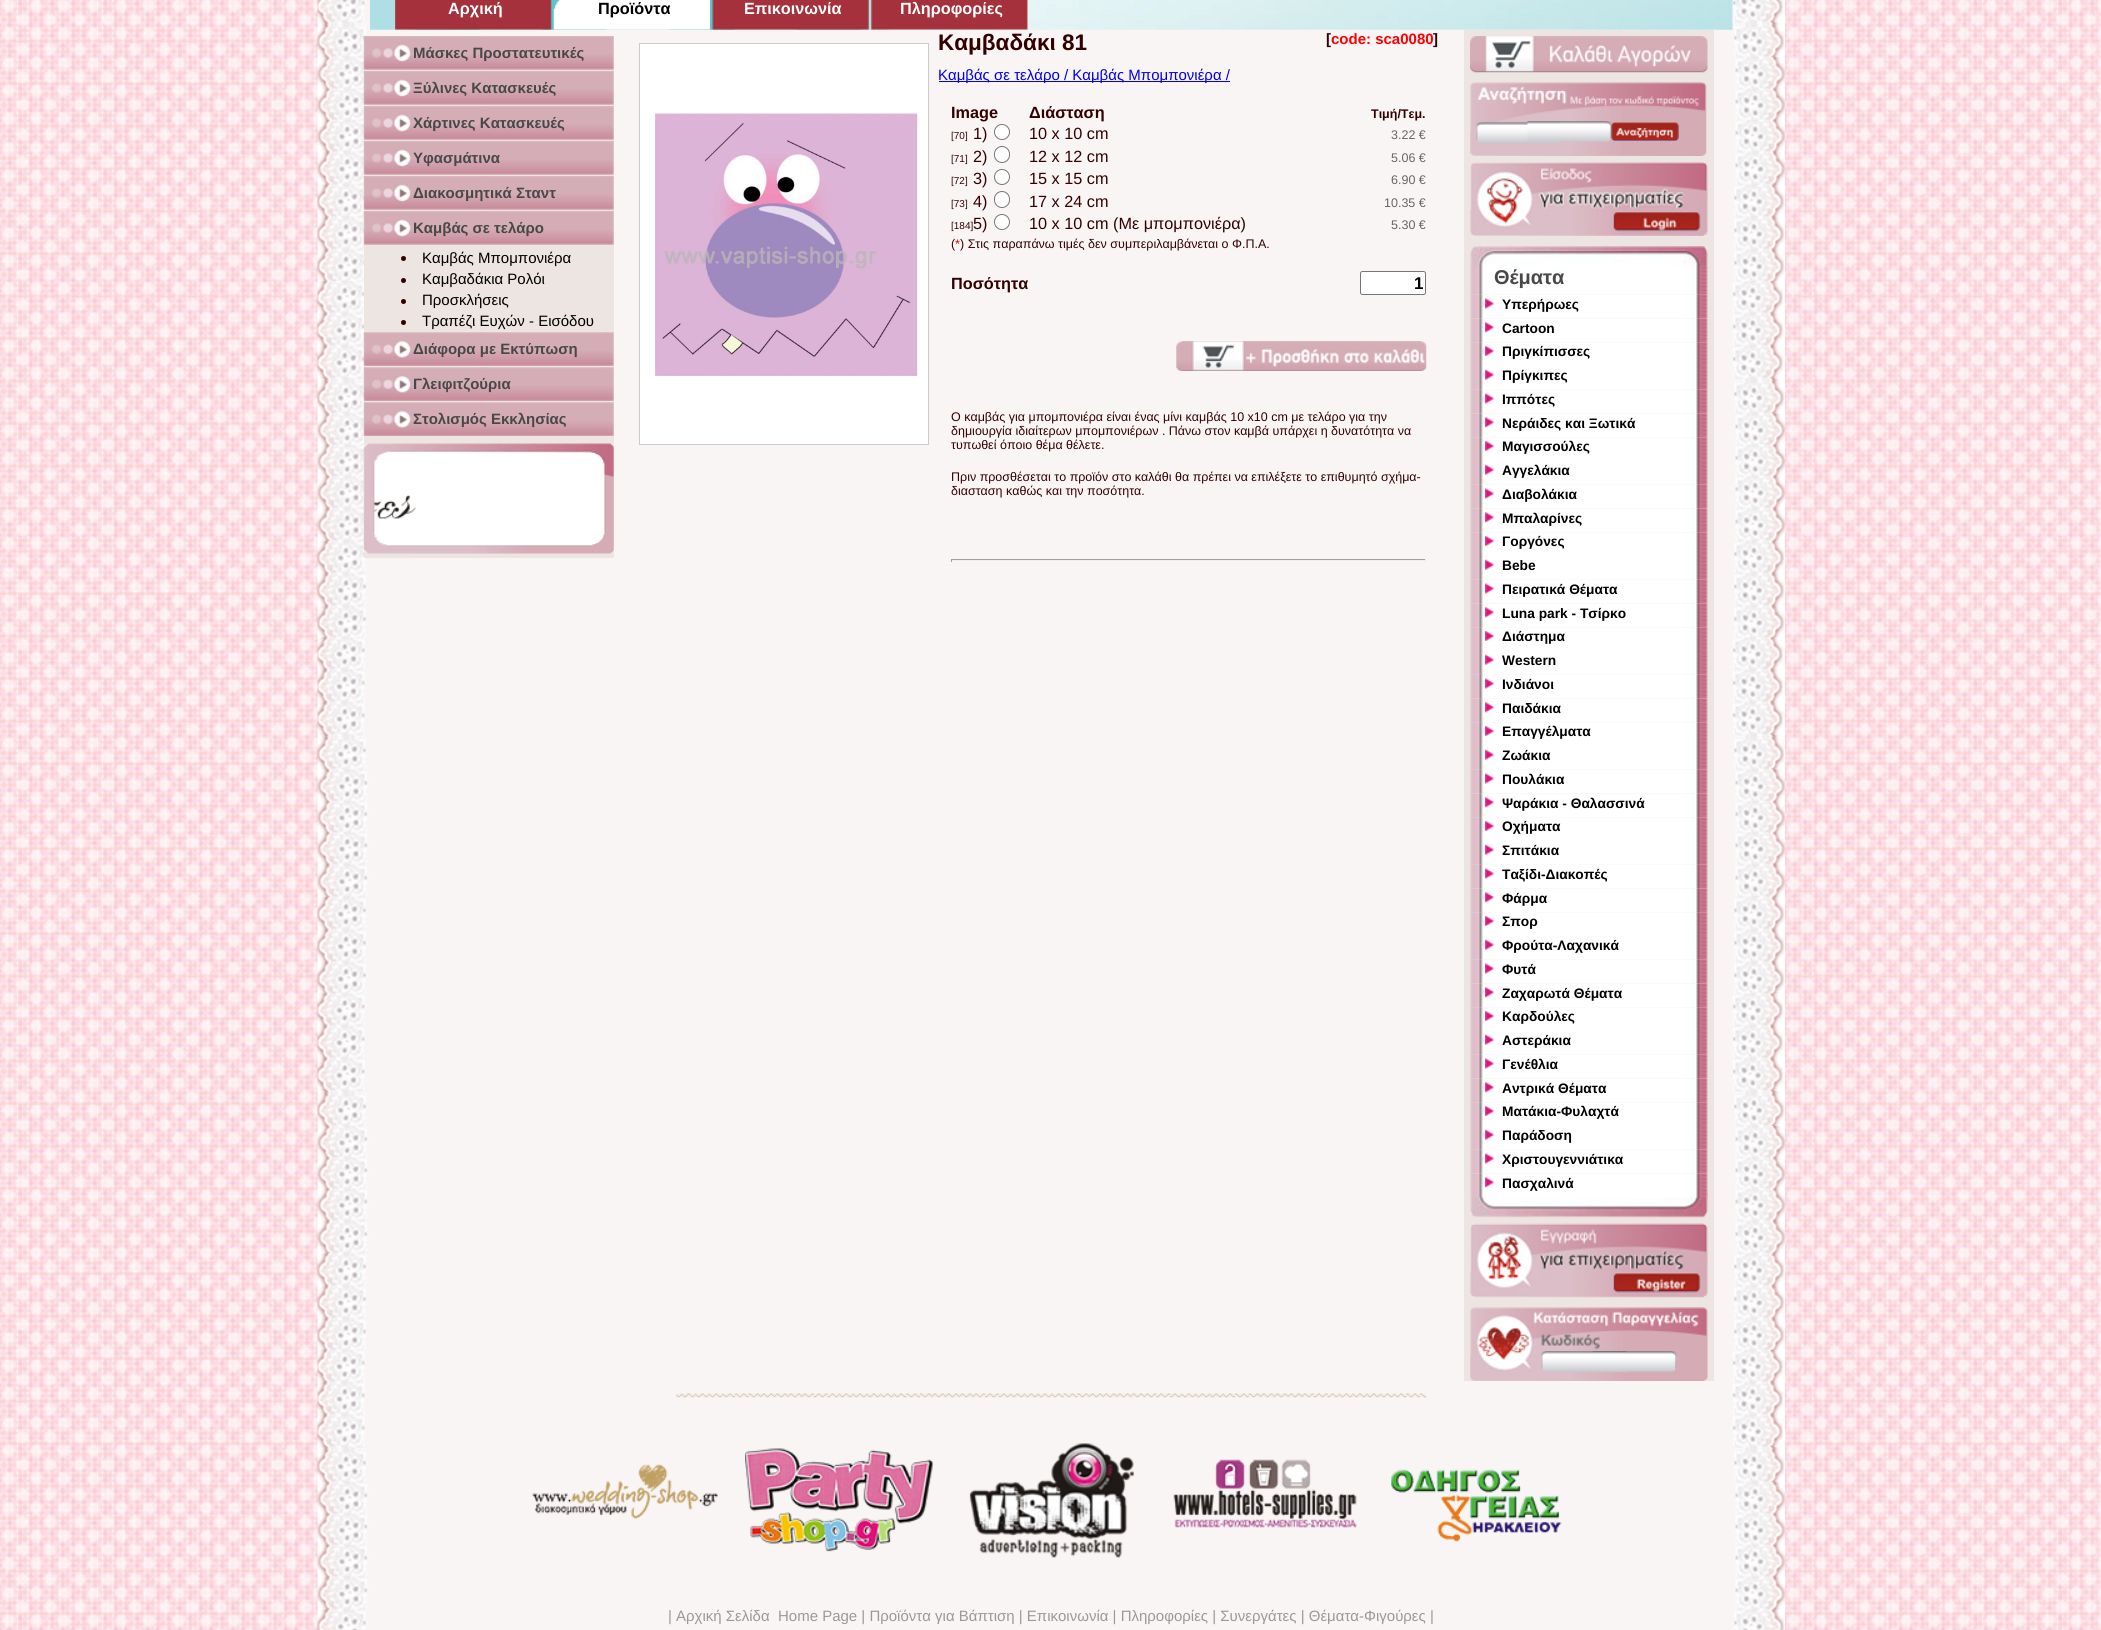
import math
import cairo


def use_color(cr, r, g, b):
  cr.set_source_rgb(r / 255, g / 255, b / 255)

def text(cr, x, y, s, family, size, color, bold=False, italic=False):
  cr.select_font_face(family, cairo.FONT_SLANT_ITALIC if italic else cairo.FONT_SLANT_NORMAL, cairo.FONT_WEIGHT_BOLD if bold else cairo.FONT_WEIGHT_NORMAL)
  cr.set_font_size(size)
  use_color(cr, *color)
  cr.move_to(x, y)
  cr.show_text(s)

def box(cr, x, y, w, h, *color):
  use_color(cr, *color)
  cr.rectangle(x, y, w, h)
  cr.fill()

def round_rect(cr, x, y, w, h, r):
  cr.new_sub_path()
  for i, (u, v) in enumerate([(x + w - r, y + h - r), (x + r, y + h - r), (x + r, y + r), (x + w - r, y + r)]):
    cr.arc(u, v, r, i * math.pi / 2, (i + 1) * math.pi / 2)
  cr.close_path()

def picture(cr, path, x, y, w, h):
  cr.save()
  cr.set_source_surface(cairo.ImageSurface.create_from_png(path), x, y)
  cr.rectangle(x, y, w, h)
  cr.fill()
  cr.restore()

def draw(cr):
  use_color(cr, 255, 255, 255)
  cr.paint()
  picture(cr, "img_01.png", 0, 0, 2101, 1630)
  picture(cr, "img_02.png", 317, 0, 1468, 1630)
  picture(cr, "img_03.png", 370, 0, 1363, 30)
  picture(cr, "img_04.png", 395, 0, 157, 30)
  picture(cr, "img_05.png", 553, 0, 157, 30)
  picture(cr, "img_06.png", 712, 0, 157, 30)
  picture(cr, "img_07.png", 871, 0, 157, 30)
  box(cr, 364, 36, 250, 522, 236, 229, 225)
  picture(cr, "img_08.png", 363, 36, 251, 34)
  picture(cr, "img_09.png", 363, 71, 251, 34)
  picture(cr, "img_10.png", 363, 106, 251, 34)
  picture(cr, "img_11.png", 363, 141, 251, 34)
  picture(cr, "img_12.png", 363, 176, 251, 34)
  picture(cr, "img_13.png", 363, 211, 251, 34)
  use_color(cr, 51, 0, 0)
  cr.arc(403.5, 258.5, 2.5, 0, 2 * math.pi)
  cr.fill()
  cr.arc(403.5, 280.5, 2.5, 0, 2 * math.pi)
  cr.fill()
  cr.arc(403.5, 301.5, 2.5, 0, 2 * math.pi)
  cr.fill()
  cr.arc(403.5, 322.5, 2.5, 0, 2 * math.pi)
  cr.fill()
  picture(cr, "img_14.png", 363, 332, 251, 34)
  picture(cr, "img_15.png", 363, 367, 251, 34)
  picture(cr, "img_16.png", 363, 402, 251, 34)
  picture(cr, "img_17.png", 363, 443, 251, 111)
  use_color(cr, 255, 255, 255)
  cr.rectangle(639.5, 43.5, 289, 401)
  cr.fill_preserve()
  use_color(cr, 204, 204, 204)
  cr.set_line_width(1)
  cr.stroke()
  picture(cr, "img_18.png", 655, 113, 263, 263)
  box(cr, 939, 81, 291, 1, 0, 0, 238)
  use_color(cr, 255, 255, 255)
  cr.arc(1002, 132, 7.5, 0, 2 * math.pi)
  cr.fill_preserve()
  use_color(cr, 118, 118, 118)
  cr.stroke()
  use_color(cr, 255, 255, 255)
  round_rect(cr, 994.5, 146.5, 15, 16, 7.5)
  cr.fill_preserve()
  use_color(cr, 118, 118, 118)
  cr.stroke()
  use_color(cr, 255, 255, 255)
  cr.arc(1002, 177, 7.5, 0, 2 * math.pi)
  cr.fill_preserve()
  use_color(cr, 118, 118, 118)
  cr.stroke()
  use_color(cr, 255, 255, 255)
  round_rect(cr, 994.5, 191.5, 15, 16, 7.5)
  cr.fill_preserve()
  use_color(cr, 118, 118, 118)
  cr.stroke()
  use_color(cr, 255, 255, 255)
  cr.arc(1002, 222, 7.5, 0, 2 * math.pi)
  cr.fill_preserve()
  use_color(cr, 118, 118, 118)
  cr.stroke()
  use_color(cr, 255, 255, 255)
  round_rect(cr, 1360.5, 271.5, 65, 23, 2)
  cr.fill_preserve()
  use_color(cr, 118, 118, 118)
  cr.stroke()
  picture(cr, "img_19.png", 1176, 341, 251, 30)
  box(cr, 951, 559, 475, 1, 159, 159, 159)
  box(cr, 1425, 559, 1, 3, 238, 238, 238)
  box(cr, 951, 560, 475, 1, 238, 238, 238)
  box(cr, 951, 559, 1, 3, 159, 159, 159)
  box(cr, 1464, 30, 250, 1351, 236, 229, 225)
  picture(cr, "img_20.png", 1470, 36, 238, 37)
  picture(cr, "img_21.png", 1470, 82, 237, 74)
  picture(cr, "img_22.png", 1476, 122, 86, 22)
  picture(cr, "img_23.png", 1527, 121, 85, 21)
  picture(cr, "img_24.png", 1611, 122, 68, 19)
  picture(cr, "img_25.png", 1470, 162, 238, 74)
  picture(cr, "img_26.png", 1470, 246, 238, 20)
  picture(cr, "img_27.png", 1470, 1193, 238, 25)
  picture(cr, "img_28.png", 1470, 266, 238, 29)
  picture(cr, "img_29.png", 1470, 294, 238, 25)
  picture(cr, "img_30.png", 1485, 298, 9, 11)
  picture(cr, "img_31.png", 1470, 318, 238, 25)
  picture(cr, "img_32.png", 1485, 322, 9, 11)
  picture(cr, "img_33.png", 1470, 342, 238, 24)
  picture(cr, "img_34.png", 1485, 346, 9, 10)
  picture(cr, "img_35.png", 1470, 366, 238, 24)
  picture(cr, "img_36.png", 1485, 369, 9, 11)
  picture(cr, "img_37.png", 1470, 389, 238, 25)
  picture(cr, "img_30.png", 1485, 393, 9, 11)
  picture(cr, "img_38.png", 1470, 413, 238, 25)
  picture(cr, "img_32.png", 1485, 417, 9, 11)
  picture(cr, "img_39.png", 1470, 437, 238, 24)
  picture(cr, "img_40.png", 1485, 441, 9, 10)
  picture(cr, "img_41.png", 1470, 461, 238, 24)
  picture(cr, "img_42.png", 1485, 464, 9, 11)
  picture(cr, "img_43.png", 1470, 484, 238, 25)
  picture(cr, "img_30.png", 1485, 488, 9, 11)
  picture(cr, "img_44.png", 1470, 508, 238, 25)
  picture(cr, "img_32.png", 1485, 512, 9, 11)
  picture(cr, "img_45.png", 1470, 532, 238, 24)
  picture(cr, "img_40.png", 1485, 536, 9, 10)
  picture(cr, "img_46.png", 1470, 556, 238, 24)
  picture(cr, "img_42.png", 1485, 559, 9, 11)
  picture(cr, "img_47.png", 1470, 579, 238, 25)
  picture(cr, "img_30.png", 1485, 583, 9, 11)
  picture(cr, "img_48.png", 1470, 603, 238, 25)
  picture(cr, "img_32.png", 1485, 607, 9, 11)
  picture(cr, "img_49.png", 1470, 627, 238, 24)
  picture(cr, "img_40.png", 1485, 631, 9, 10)
  picture(cr, "img_50.png", 1470, 651, 238, 24)
  picture(cr, "img_42.png", 1485, 654, 9, 11)
  picture(cr, "img_51.png", 1470, 674, 238, 25)
  picture(cr, "img_30.png", 1485, 678, 9, 11)
  picture(cr, "img_52.png", 1470, 698, 238, 25)
  picture(cr, "img_32.png", 1485, 702, 9, 11)
  picture(cr, "img_53.png", 1470, 722, 238, 24)
  picture(cr, "img_54.png", 1485, 726, 9, 10)
  picture(cr, "img_46.png", 1470, 746, 238, 24)
  picture(cr, "img_42.png", 1485, 749, 9, 11)
  picture(cr, "img_47.png", 1470, 769, 238, 25)
  picture(cr, "img_30.png", 1485, 773, 9, 11)
  picture(cr, "img_48.png", 1470, 793, 238, 25)
  picture(cr, "img_32.png", 1485, 797, 9, 11)
  picture(cr, "img_39.png", 1470, 817, 238, 24)
  picture(cr, "img_40.png", 1485, 821, 9, 10)
  picture(cr, "img_55.png", 1470, 841, 238, 24)
  picture(cr, "img_42.png", 1485, 844, 9, 11)
  picture(cr, "img_56.png", 1470, 864, 238, 25)
  picture(cr, "img_30.png", 1485, 868, 9, 11)
  picture(cr, "img_57.png", 1470, 888, 238, 25)
  picture(cr, "img_32.png", 1485, 892, 9, 11)
  picture(cr, "img_58.png", 1470, 912, 238, 24)
  picture(cr, "img_34.png", 1485, 916, 9, 10)
  picture(cr, "img_59.png", 1470, 936, 238, 24)
  picture(cr, "img_36.png", 1485, 939, 9, 11)
  picture(cr, "img_60.png", 1470, 959, 238, 25)
  picture(cr, "img_30.png", 1485, 963, 9, 11)
  picture(cr, "img_48.png", 1470, 983, 238, 25)
  picture(cr, "img_32.png", 1485, 987, 9, 11)
  picture(cr, "img_61.png", 1470, 1007, 238, 24)
  picture(cr, "img_40.png", 1485, 1011, 9, 10)
  picture(cr, "img_62.png", 1470, 1031, 238, 24)
  picture(cr, "img_42.png", 1485, 1034, 9, 11)
  picture(cr, "img_63.png", 1470, 1054, 238, 25)
  picture(cr, "img_30.png", 1485, 1058, 9, 11)
  picture(cr, "img_64.png", 1470, 1078, 238, 25)
  picture(cr, "img_32.png", 1485, 1082, 9, 11)
  picture(cr, "img_65.png", 1470, 1102, 238, 24)
  picture(cr, "img_40.png", 1485, 1106, 9, 10)
  picture(cr, "img_66.png", 1470, 1126, 238, 24)
  picture(cr, "img_42.png", 1485, 1129, 9, 11)
  picture(cr, "img_67.png", 1470, 1149, 238, 25)
  picture(cr, "img_30.png", 1485, 1153, 9, 11)
  picture(cr, "img_68.png", 1470, 1173, 238, 25)
  picture(cr, "img_32.png", 1485, 1177, 9, 11)
  picture(cr, "img_69.png", 1470, 1223, 238, 75)
  picture(cr, "img_70.png", 1470, 1307, 238, 74)
  picture(cr, "img_71.png", 1541, 1351, 86, 22)
  picture(cr, "img_72.png", 1592, 1351, 85, 22)
  picture(cr, "img_73.png", 676, 1393, 751, 5)
  picture(cr, "img_74.png", 532, 1464, 186, 55)
  picture(cr, "img_75.png", 745, 1448, 188, 104)
  picture(cr, "img_76.png", 969, 1443, 165, 115)
  picture(cr, "img_77.png", 1173, 1459, 184, 69)
  picture(cr, "img_78.png", 1391, 1469, 171, 73)
  text(cr, 448, 14, "Αρχική", "Liberation Sans", 16.25, (255, 255, 255), bold=True)
  text(cr, 598, 14, "Προϊόντα", "Liberation Sans", 16.25, (0, 0, 0), bold=True)
  text(cr, 744, 14, "Επικοινωνία", "Liberation Sans", 16.25, (255, 255, 255), bold=True)
  text(cr, 900, 14, "Πληροφορίες", "Liberation Sans", 16.25, (255, 255, 255), bold=True)
  text(cr, 413, 58, "Μάσκες Προστατευτικές", "Liberation Sans", 15, (72, 72, 72), bold=True)
  text(cr, 413, 93, "Ξύλινες Κατασκευές", "Liberation Sans", 15, (72, 72, 72), bold=True)
  text(cr, 413, 128, "Χάρτινες Κατασκευές", "Liberation Sans", 15, (72, 72, 72), bold=True)
  text(cr, 413, 163, "Υφασμάτινα", "Liberation Sans", 15, (72, 72, 72), bold=True)
  text(cr, 413, 198, "Διακοσμητικά Σταντ", "Liberation Sans", 15, (72, 72, 72), bold=True)
  text(cr, 413, 233, "Καμβάς σε τελάρο", "Liberation Sans", 15, (72, 72, 72), bold=True)
  text(cr, 422, 263, "Καμβάς Μπομπονιέρα", "Liberation Sans", 15, (0, 0, 0))
  text(cr, 422, 284, "Καμβαδάκια Ρολόι", "Liberation Sans", 15, (0, 0, 0))
  text(cr, 422, 305, "Προσκλήσεις", "Liberation Sans", 15, (0, 0, 0))
  text(cr, 422, 326, "Τραπέζι Ευχών - Εισόδου", "Liberation Sans", 15, (0, 0, 0))
  text(cr, 413, 354, "Διάφορα με Εκτύπωση", "Liberation Sans", 15, (72, 72, 72), bold=True)
  text(cr, 413, 389, "Γλειφιτζούρια", "Liberation Sans", 15, (72, 72, 72), bold=True)
  text(cr, 413, 424, "Στολισμός Εκκλησίας", "Liberation Sans", 15, (72, 72, 72), bold=True)
  text(cr, 938, 50, "Καμβαδάκι 81", "Liberation Sans", 22.5, (51, 0, 0), bold=True)
  text(cr, 1326, 44, "[", "Liberation Sans", 15, (51, 0, 0), bold=True)
  text(cr, 1331, 44, "code: sca0080", "Liberation Sans", 15, (255, 0, 0), bold=True)
  text(cr, 1433, 44, "]", "Liberation Sans", 15, (51, 0, 0), bold=True)
  text(cr, 938, 80, "Καμβάς σε τελάρο / Καμβάς Μπομπονιέρα /", "Liberation Sans", 15, (0, 0, 238))
  text(cr, 951, 118, "Image", "Liberation Sans", 16.25, (51, 0, 0), bold=True)
  text(cr, 1029, 118, "Διάσταση", "Liberation Sans", 16.25, (51, 0, 0), bold=True)
  text(cr, 1371, 118, "Τιμή/Τεμ.", "Liberation Sans", 12.5, (51, 0, 0), bold=True)
  text(cr, 951, 139, "[70]", "Liberation Sans", 10, (51, 0, 0))
  text(cr, 973, 139, "1)", "Liberation Sans", 16.25, (51, 0, 0))
  text(cr, 1029, 139, "10 x 10 cm", "Liberation Sans", 16.25, (51, 0, 0))
  text(cr, 1391, 139, "3.22 €", "Liberation Sans", 12.5, (102, 102, 102))
  text(cr, 951, 162, "[71]", "Liberation Sans", 10, (51, 0, 0))
  text(cr, 973, 162, "2)", "Liberation Sans", 16.25, (51, 0, 0))
  text(cr, 1029, 162, "12 x 12 cm", "Liberation Sans", 16.25, (51, 0, 0))
  text(cr, 1391, 162, "5.06 €", "Liberation Sans", 12.5, (102, 102, 102))
  text(cr, 951, 184, "[72]", "Liberation Sans", 10, (51, 0, 0))
  text(cr, 973, 184, "3)", "Liberation Sans", 16.25, (51, 0, 0))
  text(cr, 1029, 184, "15 x 15 cm", "Liberation Sans", 16.25, (51, 0, 0))
  text(cr, 1391, 184, "6.90 €", "Liberation Sans", 12.5, (102, 102, 102))
  text(cr, 951, 207, "[73]", "Liberation Sans", 10, (51, 0, 0))
  text(cr, 973, 207, "4)", "Liberation Sans", 16.25, (51, 0, 0))
  text(cr, 1029, 207, "17 x 24 cm", "Liberation Sans", 16.25, (51, 0, 0))
  text(cr, 1384, 207, "10.35 €", "Liberation Sans", 12.5, (102, 102, 102))
  text(cr, 951, 229, "[184]", "Liberation Sans", 10, (51, 0, 0))
  text(cr, 973, 229, "5)", "Liberation Sans", 16.25, (51, 0, 0))
  text(cr, 1029, 229, "10 x 10 cm (Με μπομπονιέρα)", "Liberation Sans", 16.25, (51, 0, 0))
  text(cr, 1391, 229, "5.30 €", "Liberation Sans", 12.5, (102, 102, 102))
  text(cr, 951, 248, "(", "Liberation Sans", 12.5, (51, 0, 0))
  text(cr, 955, 248, "*", "Liberation Sans", 12.5, (255, 0, 0))
  text(cr, 960, 248, ") Στις παραπάνω τιμές δεν συμπεριλαμβάνεται ο Φ.Π.Α.", "Liberation Sans", 12.5, (51, 0, 0))
  text(cr, 951, 289, "Ποσότητα", "Liberation Sans", 16.25, (51, 0, 0), bold=True)
  text(cr, 1414, 289, "1", "Liberation Sans", 17, (0, 0, 0), bold=True)
  text(cr, 951, 421, "Ο καμβάς για μπομπονιέρα είναι ένας μίνι καμβάς 10 x10 cm με τελάρο για την", "Liberation Sans", 12.5, (51, 0, 0))
  text(cr, 951, 435, "δημιουργία ιδιαίτερων μπομπονιέρων . Πάνω στον καμβά υπάρχει η δυνατότητα να", "Liberation Sans", 12.5, (51, 0, 0))
  text(cr, 951, 449, "τυπωθεί όποιο θέμα θέλετε.", "Liberation Sans", 12.5, (51, 0, 0))
  text(cr, 951, 481, "Πριν προσθέσεται το προϊόν στο καλάθι θα πρέπει να επιλέξετε το επιθυμητό σχήμα-", "Liberation Sans", 12.5, (51, 0, 0))
  text(cr, 951, 495, "διασταση καθώς και την ποσότητα.", "Liberation Sans", 12.5, (51, 0, 0))
  text(cr, 1494, 284, "Θέματα", "Liberation Sans", 20, (72, 72, 72), bold=True)
  text(cr, 1502, 309, "Υπερήρωες", "Liberation Sans", 13.75, (0, 0, 0), bold=True)
  text(cr, 1502, 333, "Cartoon", "Liberation Sans", 13.75, (0, 0, 0), bold=True)
  text(cr, 1502, 356, "Πριγκίπισσες", "Liberation Sans", 13.75, (0, 0, 0), bold=True)
  text(cr, 1502, 380, "Πρίγκιπες", "Liberation Sans", 13.75, (0, 0, 0), bold=True)
  text(cr, 1502, 404, "Ιππότες", "Liberation Sans", 13.75, (0, 0, 0), bold=True)
  text(cr, 1502, 428, "Νεράιδες και Ξωτικά", "Liberation Sans", 13.75, (0, 0, 0), bold=True)
  text(cr, 1502, 451, "Μαγισσούλες", "Liberation Sans", 13.75, (0, 0, 0), bold=True)
  text(cr, 1502, 475, "Αγγελάκια", "Liberation Sans", 13.75, (0, 0, 0), bold=True)
  text(cr, 1502, 499, "Διαβολάκια", "Liberation Sans", 13.75, (0, 0, 0), bold=True)
  text(cr, 1502, 523, "Μπαλαρίνες", "Liberation Sans", 13.75, (0, 0, 0), bold=True)
  text(cr, 1502, 546, "Γοργόνες", "Liberation Sans", 13.75, (0, 0, 0), bold=True)
  text(cr, 1502, 570, "Bebe", "Liberation Sans", 13.75, (0, 0, 0), bold=True)
  text(cr, 1502, 594, "Πειρατικά Θέματα", "Liberation Sans", 13.75, (0, 0, 0), bold=True)
  text(cr, 1502, 618, "Luna park - Τσίρκο", "Liberation Sans", 13.75, (0, 0, 0), bold=True)
  text(cr, 1502, 641, "Διάστημα", "Liberation Sans", 13.75, (0, 0, 0), bold=True)
  text(cr, 1502, 665, "Western", "Liberation Sans", 13.75, (0, 0, 0), bold=True)
  text(cr, 1502, 689, "Ινδιάνοι", "Liberation Sans", 13.75, (0, 0, 0), bold=True)
  text(cr, 1502, 713, "Παιδάκια", "Liberation Sans", 13.75, (0, 0, 0), bold=True)
  text(cr, 1502, 736, "Επαγγέλματα", "Liberation Sans", 13.75, (0, 0, 0), bold=True)
  text(cr, 1502, 760, "Ζωάκια", "Liberation Sans", 13.75, (0, 0, 0), bold=True)
  text(cr, 1502, 784, "Πουλάκια", "Liberation Sans", 13.75, (0, 0, 0), bold=True)
  text(cr, 1502, 808, "Ψαράκια - Θαλασσινά", "Liberation Sans", 13.75, (0, 0, 0), bold=True)
  text(cr, 1502, 831, "Οχήματα", "Liberation Sans", 13.75, (0, 0, 0), bold=True)
  text(cr, 1502, 855, "Σπιτάκια", "Liberation Sans", 13.75, (0, 0, 0), bold=True)
  text(cr, 1502, 879, "Ταξίδι-Διακοπές", "Liberation Sans", 13.75, (0, 0, 0), bold=True)
  text(cr, 1502, 903, "Φάρμα", "Liberation Sans", 13.75, (0, 0, 0), bold=True)
  text(cr, 1502, 926, "Σπορ", "Liberation Sans", 13.75, (0, 0, 0), bold=True)
  text(cr, 1502, 950, "Φρούτα-Λαχανικά", "Liberation Sans", 13.75, (0, 0, 0), bold=True)
  text(cr, 1502, 974, "Φυτά", "Liberation Sans", 13.75, (0, 0, 0), bold=True)
  text(cr, 1502, 998, "Ζαχαρωτά Θέματα", "Liberation Sans", 13.75, (0, 0, 0), bold=True)
  text(cr, 1502, 1021, "Καρδούλες", "Liberation Sans", 13.75, (0, 0, 0), bold=True)
  text(cr, 1502, 1045, "Αστεράκια", "Liberation Sans", 13.75, (0, 0, 0), bold=True)
  text(cr, 1502, 1069, "Γενέθλια", "Liberation Sans", 13.75, (0, 0, 0), bold=True)
  text(cr, 1502, 1093, "Αντρικά Θέματα", "Liberation Sans", 13.75, (0, 0, 0), bold=True)
  text(cr, 1502, 1116, "Ματάκια-Φυλαχτά", "Liberation Sans", 13.75, (0, 0, 0), bold=True)
  text(cr, 1502, 1140, "Παράδοση", "Liberation Sans", 13.75, (0, 0, 0), bold=True)
  text(cr, 1502, 1164, "Χριστουγεννιάτικα", "Liberation Sans", 13.75, (0, 0, 0), bold=True)
  text(cr, 1502, 1188, "Πασχαλινά", "Liberation Sans", 13.75, (0, 0, 0), bold=True)
  text(cr, 668, 1621, "| Αρχική Σελίδα  Home Page | Προϊόντα για Βάπτιση | Επικοινωνία | Πληροφορίες | Συνεργάτες | Θέματα-Φιγούρες |", "Liberation Sans", 15, (153, 153, 153))


surface = cairo.ImageSurface(cairo.FORMAT_RGB24, 2101, 1630)
cr = cairo.Context(surface)
options = cairo.FontOptions()
options.set_hint_metrics(cairo.HINT_METRICS_OFF)
options.set_hint_style(cairo.HINT_STYLE_NONE)
cr.set_font_options(options)
cr.set_miter_limit(4)
draw(cr)
surface.write_to_png("out.png")
